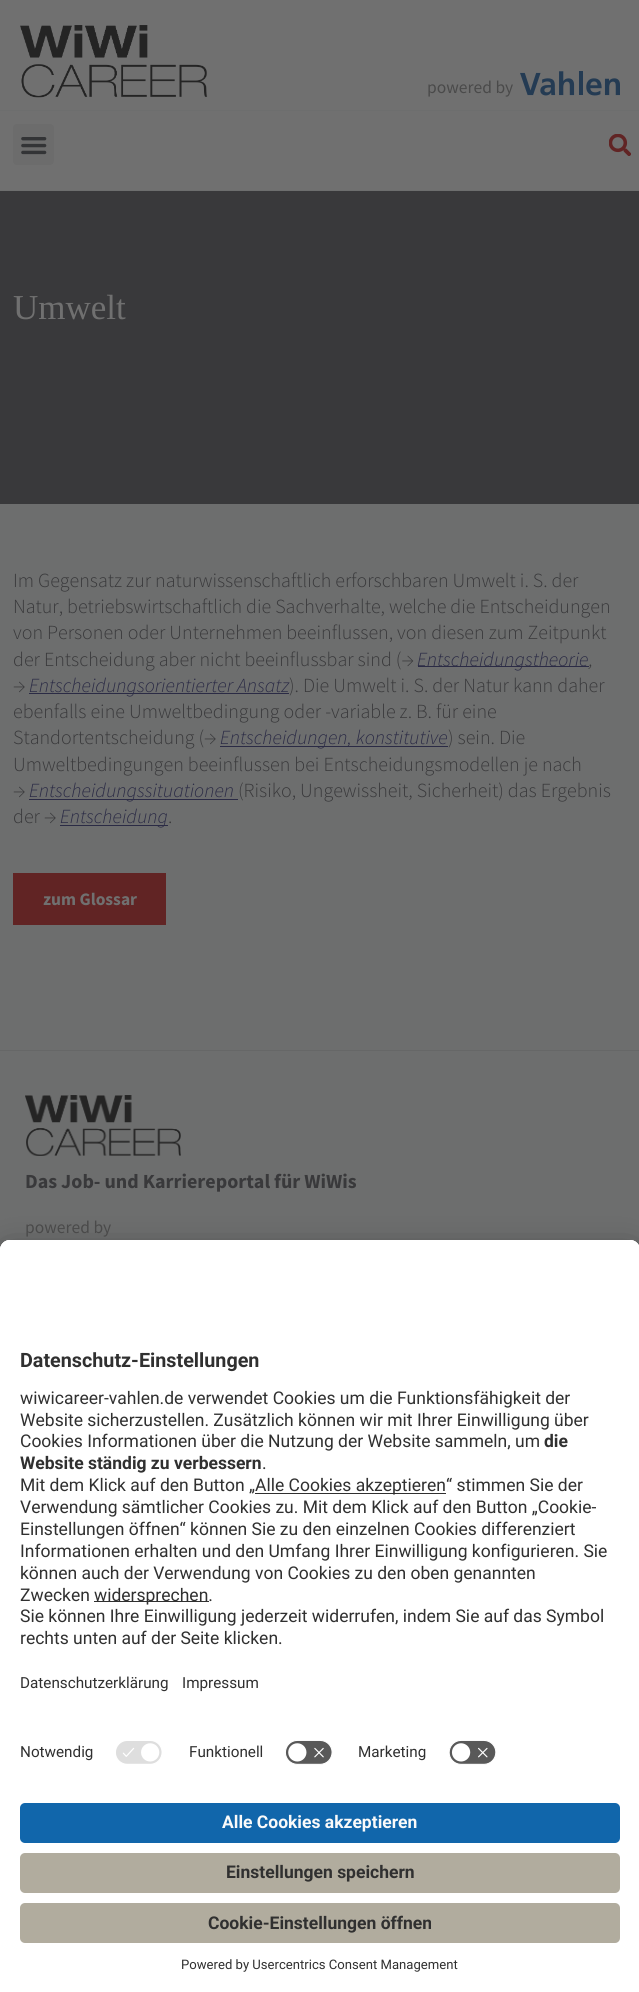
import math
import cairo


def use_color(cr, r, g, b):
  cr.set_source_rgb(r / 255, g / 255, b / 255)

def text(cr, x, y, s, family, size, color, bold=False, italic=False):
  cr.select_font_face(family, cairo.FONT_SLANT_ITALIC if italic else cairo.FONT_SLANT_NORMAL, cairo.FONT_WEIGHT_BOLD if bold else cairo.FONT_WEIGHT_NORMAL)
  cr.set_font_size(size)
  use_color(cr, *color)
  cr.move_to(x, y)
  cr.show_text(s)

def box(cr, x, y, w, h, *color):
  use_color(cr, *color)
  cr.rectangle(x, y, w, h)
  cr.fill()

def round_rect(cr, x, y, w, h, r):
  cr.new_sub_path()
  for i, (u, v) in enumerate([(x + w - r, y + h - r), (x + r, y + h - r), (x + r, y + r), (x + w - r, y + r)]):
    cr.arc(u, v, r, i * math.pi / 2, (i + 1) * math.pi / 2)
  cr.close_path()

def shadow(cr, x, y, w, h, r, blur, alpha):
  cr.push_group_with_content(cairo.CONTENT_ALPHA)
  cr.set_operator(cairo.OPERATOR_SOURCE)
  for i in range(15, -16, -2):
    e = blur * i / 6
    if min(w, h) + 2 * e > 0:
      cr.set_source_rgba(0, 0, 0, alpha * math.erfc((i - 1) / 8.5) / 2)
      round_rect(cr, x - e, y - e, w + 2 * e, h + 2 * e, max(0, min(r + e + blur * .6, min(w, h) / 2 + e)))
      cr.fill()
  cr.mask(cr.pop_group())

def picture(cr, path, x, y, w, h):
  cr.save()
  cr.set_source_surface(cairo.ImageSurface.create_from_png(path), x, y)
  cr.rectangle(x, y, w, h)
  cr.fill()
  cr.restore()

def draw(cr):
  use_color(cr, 109, 110, 110)
  cr.paint()
  box(cr, 0, 0, 639, 110, 112, 112, 112)
  picture(cr, "img_01.png", 20, 25, 188, 73)
  picture(cr, "img_02.png", 520, 71, 100, 25)
  box(cr, 0, 111, 639, 79, 112, 112, 112)
  use_color(cr, 108, 108, 108)
  round_rect(cr, 13, 124, 41, 41, 4)
  cr.fill()
  picture(cr, "img_03.png", 21, 137, 26, 18)
  picture(cr, "img_04.png", 609, 134, 22, 22)
  box(cr, 0, 191, 639, 313, 57, 57, 59)
  box(cr, 418, 666, 171, 1, 43, 43, 69)
  box(cr, 29, 693, 260, 1, 43, 43, 69)
  box(cr, 220, 746, 228, 1, 43, 43, 69)
  box(cr, 29, 799, 209, 1, 43, 43, 69)
  box(cr, 60, 825, 108, 1, 43, 43, 69)
  box(cr, 13, 873, 153, 52, 97, 36, 36)
  box(cr, 0, 1050, 639, 1, 102, 103, 103)
  picture(cr, "img_05.png", 25, 1095, 156, 61)
  use_color(cr, 0, 0, 0)
  shadow(cr, 0, 1265, 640, 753, 10, 17.5, 0.3)
  shadow(cr, 0, 1246, 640, 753, 10, 16, 0.22)
  use_color(cr, 255, 255, 255)
  cr.new_path()
  cr.move_to(10, 1240)
  cr.line_to(630, 1240)
  cr.curve_to(635.5, 1240, 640, 1244.5, 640, 1250)
  cr.line_to(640, 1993)
  cr.line_to(0, 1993)
  cr.line_to(0, 1250)
  cr.curve_to(0, 1244.5, 4.5, 1240, 10, 1240)
  cr.close_path()
  cr.fill()
  cr.new_path()
  cr.move_to(10, 1240)
  cr.line_to(630, 1240)
  cr.curve_to(635.5, 1240, 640, 1244.5, 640, 1250)
  cr.line_to(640, 1788)
  cr.line_to(0, 1788)
  cr.line_to(0, 1250)
  cr.curve_to(0, 1244.5, 4.5, 1240, 10, 1240)
  cr.close_path()
  cr.fill()
  cr.new_path()
  cr.move_to(10, 1240)
  cr.line_to(630, 1240)
  cr.curve_to(635.5, 1240, 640, 1244.5, 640, 1250)
  cr.line_to(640, 1733)
  cr.line_to(0, 1733)
  cr.line_to(0, 1250)
  cr.curve_to(0, 1244.5, 4.5, 1240, 10, 1240)
  cr.close_path()
  cr.fill()
  box(cr, 255, 1493, 191, 1, 48, 48, 48)
  box(cr, 94, 1601, 115, 1, 48, 48, 48)
  picture(cr, "img_06.png", 116, 1741, 46, 23)
  picture(cr, "img_07.png", 285, 1740, 48, 25)
  picture(cr, "img_08.png", 449, 1740, 47, 25)
  use_color(cr, 17, 102, 171)
  round_rect(cr, 20, 1803, 600, 40, 5)
  cr.fill()
  use_color(cr, 177, 172, 158)
  round_rect(cr, 20, 1853, 600, 40, 5)
  cr.fill()
  round_rect(cr, 20, 1903, 600, 40, 5)
  cr.fill()
  text(cr, 427, 93, "powered by", "Source Sans Pro", 17.5, (74, 74, 74))
  text(cr, 13, 319, "Umwelt", "Tinos", 35, (112, 112, 112))
  text(cr, 13, 587, "Im Gegensatz zur naturwissenschaftlich erforschbaren Umwelt i. S. der", "Source Sans Pro Light", 20, (57, 57, 59))
  text(cr, 13, 613, "Natur, betriebswirtschaftlich die Sachverhalte, welche die Entscheidungen", "Source Sans Pro Light", 20, (57, 57, 59))
  text(cr, 13, 639, "von Personen oder Unternehmen beeinflussen, von diesen zum Zeitpunkt", "Source Sans Pro Light", 20, (57, 57, 59))
  text(cr, 13, 666, "der Entscheidung aber nicht beeinflussbar sind (→", "Source Sans Pro Light", 20, (57, 57, 59))
  text(cr, 417, 666, "Entscheidungstheorie", "Source Sans Pro Light", 20, (43, 43, 69), italic=True)
  text(cr, 589, 666, ",", "Source Sans Pro Light", 20, (57, 57, 59), italic=True)
  text(cr, 13, 692, "→", "Source Sans Pro Light", 20, (57, 57, 59))
  text(cr, 29, 692, "Entscheidungsorientierter Ansatz", "Source Sans Pro Light", 20, (43, 43, 69), italic=True)
  text(cr, 289, 692, "). Die Umwelt i. S. der Natur kann daher", "Source Sans Pro Light", 20, (57, 57, 59))
  text(cr, 13, 718, "ebenfalls eine Umweltbedingung oder -variable z. B. für eine", "Source Sans Pro Light", 20, (57, 57, 59))
  text(cr, 13, 744, "Standortentscheidung (→", "Source Sans Pro Light", 20, (57, 57, 59))
  text(cr, 220, 744, "Entscheidungen, konstitutive", "Source Sans Pro Light", 20, (43, 43, 69), italic=True)
  text(cr, 448, 744, ") sein. Die", "Source Sans Pro Light", 20, (57, 57, 59))
  text(cr, 13, 771, "Umweltbedingungen beeinflussen bei Entscheidungsmodellen je nach", "Source Sans Pro Light", 20, (57, 57, 59))
  text(cr, 13, 797, "→", "Source Sans Pro Light", 20, (57, 57, 59))
  text(cr, 29, 797, "Entscheidungssituationen", "Source Sans Pro Light", 20, (43, 43, 69), italic=True)
  text(cr, 238, 797, "(Risiko, Ungewissheit, Sicherheit) das Ergebnis", "Source Sans Pro Light", 20, (57, 57, 59))
  text(cr, 13, 823, "der →", "Source Sans Pro Light", 20, (57, 57, 59))
  text(cr, 60, 823, "Entscheidung", "Source Sans Pro Light", 20, (43, 43, 69), italic=True)
  text(cr, 168, 823, ".", "Source Sans Pro Light", 20, (57, 57, 59))
  text(cr, 43, 905, "zum Glossar", "Source Sans Pro", 17.5, (112, 112, 112), bold=True)
  text(cr, 25, 1188, "Das Job- und Karriereportal für WiWis", "Source Sans Pro", 20, (57, 57, 59), bold=True)
  text(cr, 25, 1233, "powered by", "Source Sans Pro", 17.5, (74, 74, 74))
  text(cr, 20, 1367, "Datenschutz-Einstellungen", "Roboto", 19.75, (48, 48, 48), bold=True)
  text(cr, 20, 1404, "wiwicareer-vahlen.de verwendet Cookies um die Funktionsfähigkeit der", "Roboto", 17.5, (48, 48, 48))
  text(cr, 20, 1426, "Website sicherzustellen. Zusätzlich können wir mit Ihrer Einwilligung über", "Roboto", 17.5, (48, 48, 48))
  text(cr, 20, 1447, "Cookies Informationen über die Nutzung der Website sammeln, um", "Roboto", 17.5, (48, 48, 48))
  text(cr, 544, 1447, "die", "Roboto", 17.5, (48, 48, 48), bold=True)
  text(cr, 20, 1469, "Website ständig zu verbessern", "Roboto", 17.5, (48, 48, 48), bold=True)
  text(cr, 262, 1469, ".", "Roboto", 17.5, (48, 48, 48))
  text(cr, 20, 1491, "Mit dem Klick auf den Button „", "Roboto", 17.5, (48, 48, 48))
  text(cr, 255, 1491, "Alle Cookies akzeptieren“ stimmen Sie der", "Roboto", 17.5, (48, 48, 48))
  text(cr, 20, 1513, "Verwendung sämtlicher Cookies zu. Mit dem Klick auf den Button „Cookie-", "Roboto", 17.5, (48, 48, 48))
  text(cr, 20, 1535, "Einstellungen öffnen“ können Sie zu den einzelnen Cookies differenziert", "Roboto", 17.5, (48, 48, 48))
  text(cr, 20, 1557, "Informationen erhalten und den Umfang Ihrer Einwilligung konfigurieren. Sie", "Roboto", 17.5, (48, 48, 48))
  text(cr, 20, 1579, "können auch der Verwendung von Cookies zu den oben genannten", "Roboto", 17.5, (48, 48, 48))
  text(cr, 20, 1601, "Zwecken", "Roboto", 17.5, (48, 48, 48))
  text(cr, 94, 1601, "widersprechen.", "Roboto", 17.5, (48, 48, 48))
  text(cr, 20, 1622, "Sie können Ihre Einwilligung jederzeit widerrufen, indem Sie auf das Symbol", "Roboto", 17.5, (48, 48, 48))
  text(cr, 20, 1644, "rechts unten auf der Seite klicken.", "Roboto", 17.5, (48, 48, 48))
  text(cr, 20, 1688, "Datenschutzerklärung", "Roboto", 15.25, (48, 48, 48))
  text(cr, 182, 1688, "Impressum", "Roboto", 15.25, (48, 48, 48))
  text(cr, 20, 1757, "Notwendig", "Roboto", 15.25, (48, 48, 48))
  text(cr, 189, 1757, "Funktionell", "Roboto", 15.25, (48, 48, 48))
  text(cr, 358, 1757, "Marketing", "Roboto", 15.25, (48, 48, 48))
  text(cr, 222, 1828, "Alle Cookies akzeptieren", "Roboto", 17.5, (250, 250, 250), bold=True)
  text(cr, 226, 1878, "Einstellungen speichern", "Roboto", 17.5, (48, 48, 48), bold=True)
  text(cr, 208, 1929, "Cookie-Einstellungen öffnen", "Roboto", 17.5, (48, 48, 48), bold=True)
  text(cr, 181, 1969, "Powered by Usercentrics Consent Management", "Roboto", 13.1, (48, 48, 48))


surface = cairo.ImageSurface(cairo.FORMAT_RGB24, 639, 1992)
cr = cairo.Context(surface)
options = cairo.FontOptions()
options.set_hint_metrics(cairo.HINT_METRICS_OFF)
options.set_hint_style(cairo.HINT_STYLE_NONE)
cr.set_font_options(options)
cr.set_miter_limit(4)
draw(cr)
surface.write_to_png("out.png")
